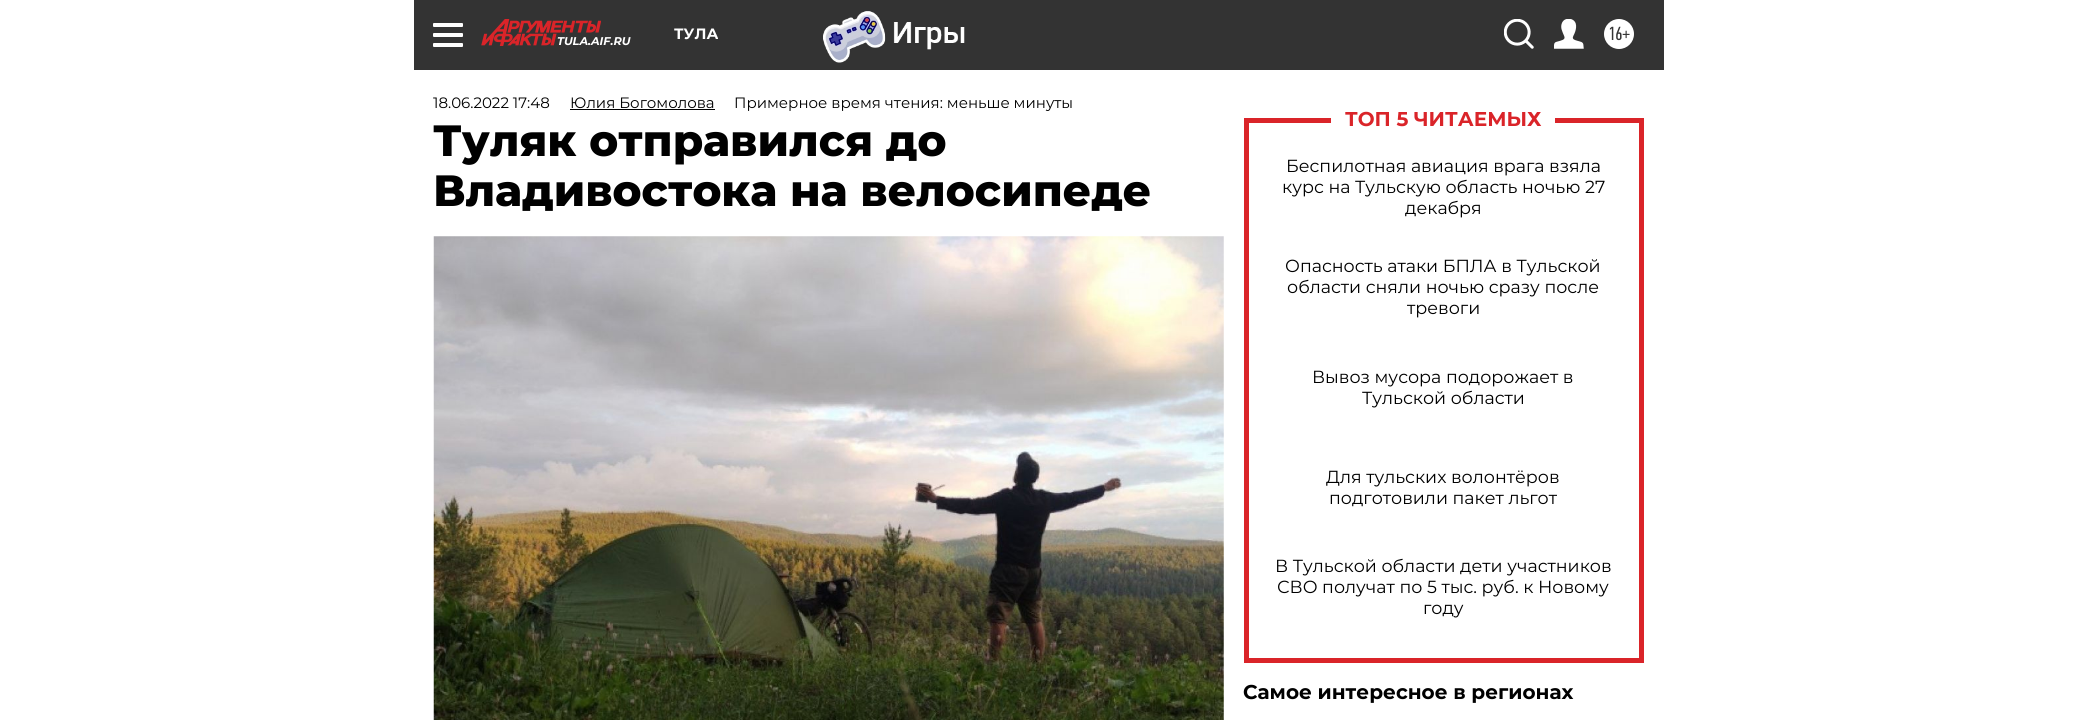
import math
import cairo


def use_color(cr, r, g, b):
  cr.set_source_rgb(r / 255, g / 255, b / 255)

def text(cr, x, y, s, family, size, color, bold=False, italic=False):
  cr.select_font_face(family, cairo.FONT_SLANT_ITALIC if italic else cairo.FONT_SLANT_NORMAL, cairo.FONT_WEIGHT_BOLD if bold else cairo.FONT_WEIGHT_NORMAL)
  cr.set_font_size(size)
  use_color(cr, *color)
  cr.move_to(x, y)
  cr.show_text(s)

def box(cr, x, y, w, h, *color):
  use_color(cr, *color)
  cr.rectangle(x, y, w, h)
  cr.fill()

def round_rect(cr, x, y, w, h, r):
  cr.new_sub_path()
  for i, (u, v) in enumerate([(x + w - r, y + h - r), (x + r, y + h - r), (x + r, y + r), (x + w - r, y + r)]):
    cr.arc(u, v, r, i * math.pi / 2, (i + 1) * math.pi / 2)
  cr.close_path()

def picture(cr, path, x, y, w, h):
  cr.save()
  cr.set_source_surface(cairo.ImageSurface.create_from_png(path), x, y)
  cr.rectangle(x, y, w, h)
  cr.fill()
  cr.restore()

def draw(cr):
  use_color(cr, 255, 255, 255)
  cr.paint()
  box(cr, 414, 0, 1250, 70, 51, 51, 51)
  use_color(cr, 255, 255, 255)
  round_rect(cr, 433, 23, 30, 4, 1)
  cr.fill()
  round_rect(cr, 433, 33, 30, 4, 1)
  cr.fill()
  round_rect(cr, 433, 43, 30, 4, 1)
  cr.fill()
  picture(cr, "img_01.png", 823, 11, 142, 52)
  picture(cr, "img_02.png", 1504, 19, 30, 30)
  picture(cr, "img_03.png", 1554, 19, 30, 30)
  cr.arc(1619, 34, 15, 0, 2 * math.pi)
  cr.fill()
  picture(cr, "img_04.png", 481, 19, 120, 27)
  box(cr, 570, 109, 145, 1, 0, 0, 0)
  picture(cr, "img_05.png", 433, 236, 791, 484)
  box(cr, 1639, 118, 5, 545, 218, 36, 41)
  box(cr, 1244, 658, 400, 5, 218, 36, 41)
  box(cr, 1244, 118, 5, 545, 218, 36, 41)
  box(cr, 1244, 118, 87, 5, 218, 36, 41)
  box(cr, 1555, 118, 89, 5, 218, 36, 41)
  text(cr, 674, 39, "ТУЛА", "Montserrat", 15, (255, 255, 255), bold=True)
  text(cr, 1608, 40, "16+", "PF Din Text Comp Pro", 19, (51, 51, 51))
  text(cr, 557, 45, "TULA.AIF.RU", "Montserrat", 11.25, (255, 255, 255), bold=True, italic=True)
  text(cr, 433, 108, "18.06.2022 17:48", "Montserrat", 15, (0, 0, 0))
  text(cr, 570, 108, "Юлия Богомолова", "Montserrat", 15, (0, 0, 0))
  text(cr, 734, 108, "Примерное время чтения: меньше минуты", "Montserrat", 15, (0, 0, 0))
  text(cr, 433, 156, "Туляк отправился до", "Montserrat ExtraBold", 43.75, (0, 0, 0))
  text(cr, 433, 206, "Владивостока на велосипеде", "Montserrat ExtraBold", 43.75, (0, 0, 0))
  text(cr, 1345, 126, "ТОП 5 ЧИТАЕМЫХ", "Montserrat", 20, (218, 36, 41), bold=True)
  text(cr, 1286, 172, "Беспилотная авиация врага взяла", "Montserrat", 17.5, (0, 0, 0))
  text(cr, 1282, 193, "курс на Тульскую область ночью 27", "Montserrat", 17.5, (0, 0, 0))
  text(cr, 1405, 214, "декабря", "Montserrat", 17.5, (0, 0, 0))
  text(cr, 1285, 272, "Опасность атаки БПЛА в Тульской", "Montserrat", 17.5, (0, 0, 0))
  text(cr, 1287, 293, "области сняли ночью сразу после", "Montserrat", 17.5, (0, 0, 0))
  text(cr, 1407, 314, "тревоги", "Montserrat", 17.5, (0, 0, 0))
  text(cr, 1312, 383, "Вывоз мусора подорожает в", "Montserrat", 17.5, (0, 0, 0))
  text(cr, 1362, 404, "Тульской области", "Montserrat", 17.5, (0, 0, 0))
  text(cr, 1326, 483, "Для тульских волонтёров", "Montserrat", 17.5, (0, 0, 0))
  text(cr, 1329, 504, "подготовили пакет льгот", "Montserrat", 17.5, (0, 0, 0))
  text(cr, 1275, 572, "В Тульской области дети участников", "Montserrat", 17.5, (0, 0, 0))
  text(cr, 1277, 593, "СВО получат по 5 тыс. руб. к Новому", "Montserrat", 17.5, (0, 0, 0))
  text(cr, 1423, 614, "году", "Montserrat", 17.5, (0, 0, 0))
  text(cr, 1243, 699, "Самое интересное в регионах", "Montserrat", 20, (0, 0, 0), bold=True)


surface = cairo.ImageSurface(cairo.FORMAT_RGB24, 2076, 720)
cr = cairo.Context(surface)
options = cairo.FontOptions()
options.set_hint_metrics(cairo.HINT_METRICS_OFF)
options.set_hint_style(cairo.HINT_STYLE_NONE)
cr.set_font_options(options)
cr.set_miter_limit(4)
draw(cr)
surface.write_to_png("out.png")
